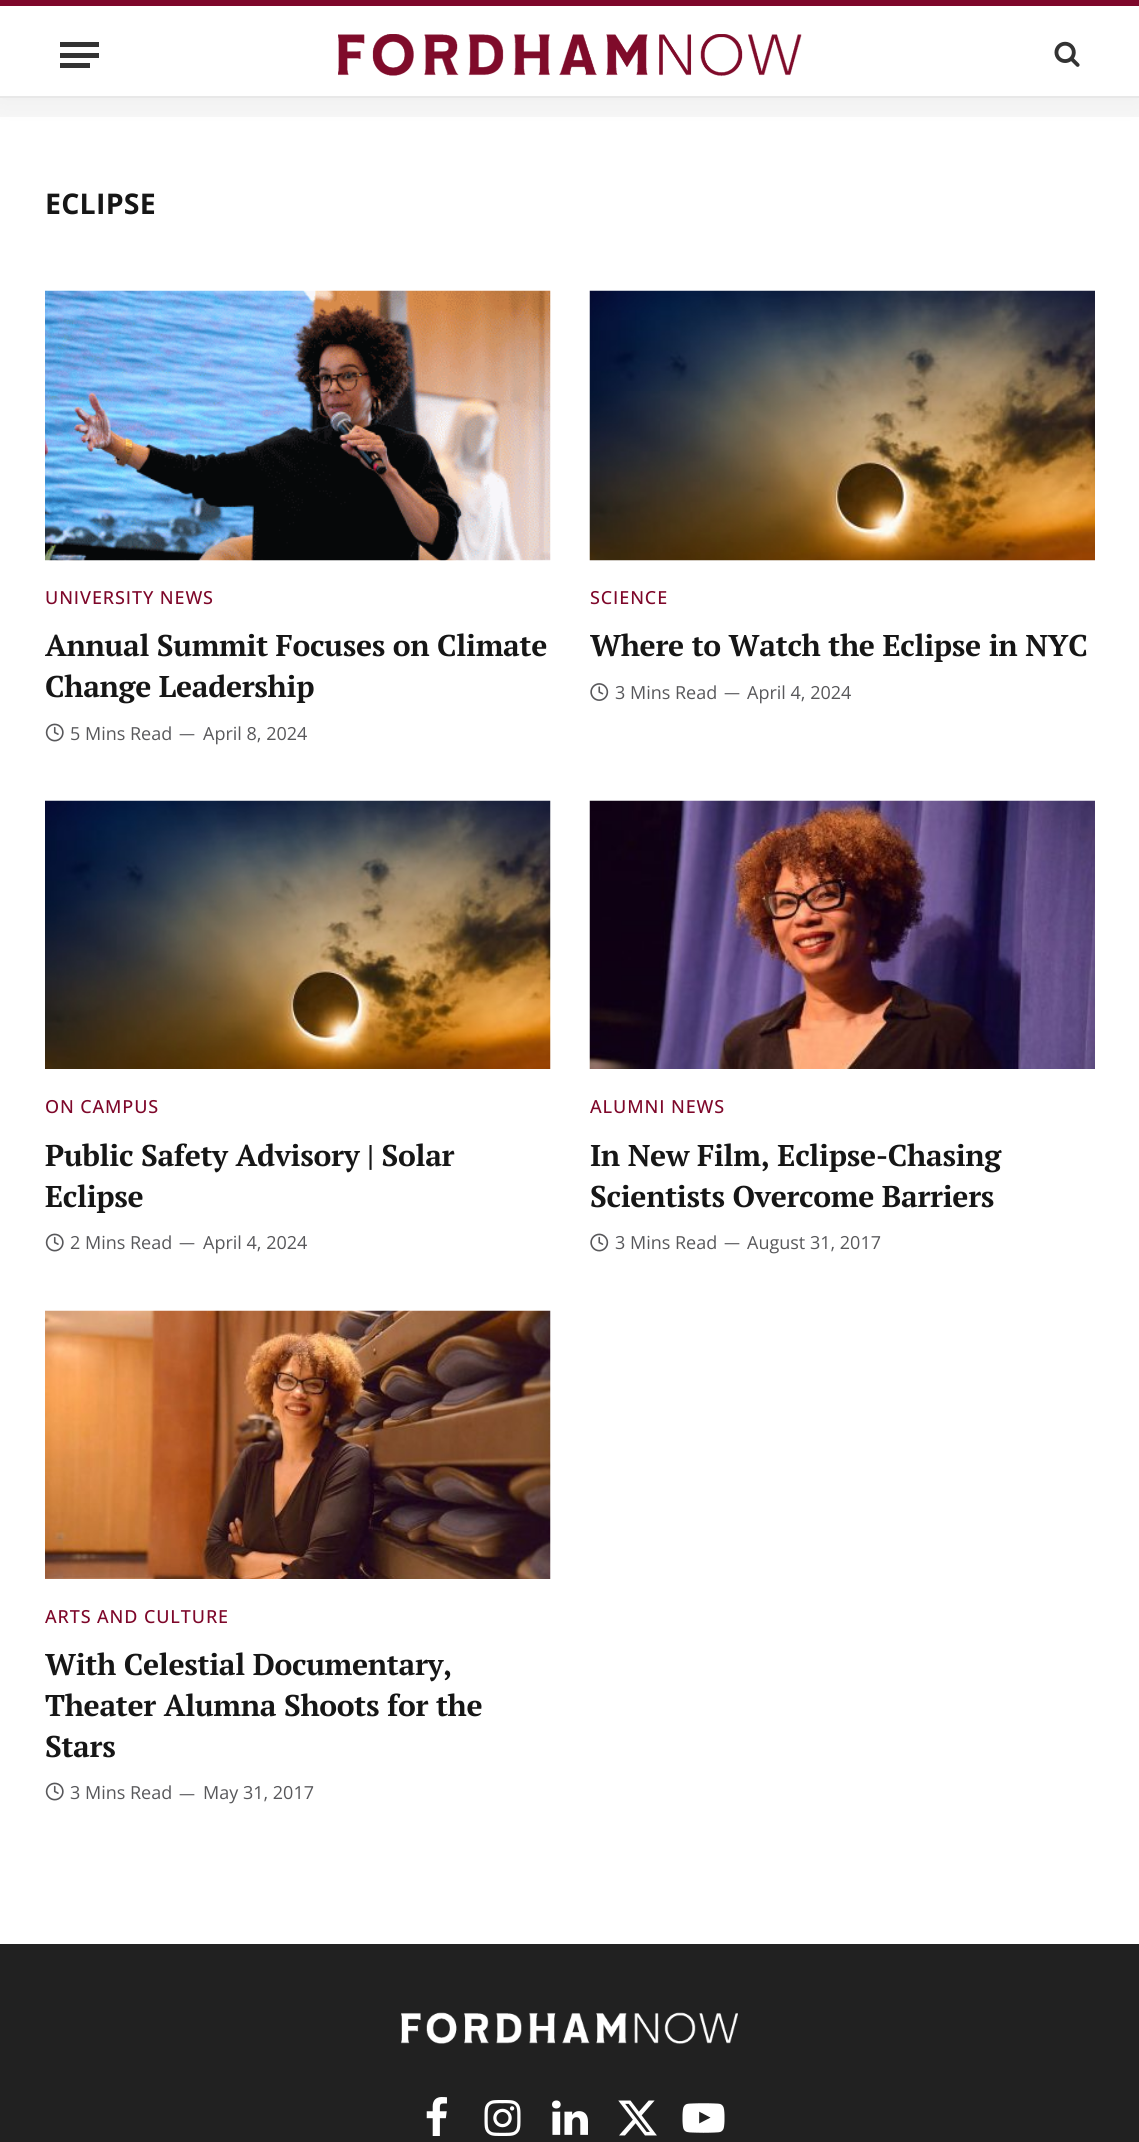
import math
import cairo


def use_color(cr, r, g, b):
  cr.set_source_rgb(r / 255, g / 255, b / 255)

def text(cr, x, y, s, family, size, color, bold=False, italic=False):
  cr.select_font_face(family, cairo.FONT_SLANT_ITALIC if italic else cairo.FONT_SLANT_NORMAL, cairo.FONT_WEIGHT_BOLD if bold else cairo.FONT_WEIGHT_NORMAL)
  cr.set_font_size(size)
  use_color(cr, *color)
  cr.move_to(x, y)
  cr.show_text(s)

def spaced_text(cr, x, y, s, letter, word):
  cr.move_to(x, y)
  for ch in s:
    cr.show_text(ch)
    cr.rel_move_to(letter + word * (ch == ' '), 0)

def box(cr, x, y, w, h, *color):
  use_color(cr, *color)
  cr.rectangle(x, y, w, h)
  cr.fill()

def round_rect(cr, x, y, w, h, r):
  cr.new_sub_path()
  for i, (u, v) in enumerate([(x + w - r, y + h - r), (x + r, y + h - r), (x + r, y + r), (x + w - r, y + r)]):
    cr.arc(u, v, r, i * math.pi / 2, (i + 1) * math.pi / 2)
  cr.close_path()

def shadow(cr, x, y, w, h, r, blur, alpha):
  cr.push_group_with_content(cairo.CONTENT_ALPHA)
  cr.set_operator(cairo.OPERATOR_SOURCE)
  for i in range(15, -16, -2):
    e = blur * i / 6
    if min(w, h) + 2 * e > 0:
      cr.set_source_rgba(0, 0, 0, alpha * math.erfc((i - 1) / 8.5) / 2)
      round_rect(cr, x - e, y - e, w + 2 * e, h + 2 * e, max(0, min(r + e + blur * .6, min(w, h) / 2 + e)))
      cr.fill()
  cr.mask(cr.pop_group())

def picture(cr, path, x, y, w, h):
  cr.save()
  cr.set_source_surface(cairo.ImageSurface.create_from_png(path), x, y)
  cr.rectangle(x, y, w, h)
  cr.fill()
  cr.restore()

def draw(cr):
  use_color(cr, 255, 255, 255)
  cr.paint()
  box(cr, 0, 98, 1139, 19, 247, 247, 247)
  use_color(cr, 0, 0, 0)
  shadow(cr, 0, 0, 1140, 98, 0, 15, 0.05)
  box(cr, 0, 6, 1139, 90, 255, 255, 255)
  box(cr, 0, 0, 1139, 6, 126, 7, 42)
  box(cr, 0, 96, 1139, 2, 232, 232, 232)
  box(cr, 60, 63, 30, 5, 51, 51, 51)
  box(cr, 60, 42, 39, 5, 51, 51, 51)
  box(cr, 60, 53, 39, 5, 51, 51, 51)
  picture(cr, "img_01.png", 338, 34, 464, 43)
  picture(cr, "img_02.png", 1054, 41, 26, 26)
  picture(cr, "img_03.png", 45, 290, 506, 271)
  picture(cr, "img_04.png", 45, 723, 19, 19)
  picture(cr, "img_05.png", 589, 290, 506, 271)
  picture(cr, "img_06.png", 590, 683, 19, 18)
  picture(cr, "img_07.png", 45, 800, 506, 269)
  picture(cr, "img_04.png", 45, 1233, 19, 19)
  picture(cr, "img_08.png", 589, 800, 506, 269)
  picture(cr, "img_09.png", 590, 1233, 19, 19)
  picture(cr, "img_10.png", 45, 1310, 506, 269)
  picture(cr, "img_04.png", 45, 1782, 19, 19)
  box(cr, 0, 1944, 1139, 198, 33, 33, 33)
  picture(cr, "img_11.png", 401, 2012, 337, 32)
  picture(cr, "img_12.png", 426, 2097, 21, 39)
  picture(cr, "img_13.png", 484, 2100, 37, 36)
  picture(cr, "img_14.png", 552, 2100, 36, 35)
  picture(cr, "img_15.png", 618, 2100, 39, 36)
  picture(cr, "img_16.png", 682, 2103, 43, 30)
  cr.select_font_face("Open Sans", cairo.FONT_SLANT_NORMAL, cairo.FONT_WEIGHT_BOLD)
  cr.set_font_size(28.5)
  use_color(cr, 22, 22, 22)
  spaced_text(cr, 45, 214, "ECLIPSE", 0.25, 0)
  cr.select_font_face("Open Sans Medium")
  cr.set_font_size(18)
  use_color(cr, 126, 7, 42)
  spaced_text(cr, 45, 604, "UNIVERSITY NEWS", 0.9, 0)
  cr.select_font_face("PT Serif", cairo.FONT_SLANT_NORMAL, cairo.FONT_WEIGHT_BOLD)
  cr.set_font_size(30)
  use_color(cr, 22, 22, 22)
  spaced_text(cr, 45, 656, "Annual Summit Focuses on Climate", -0.3, 0)
  spaced_text(cr, 45, 697, "Change Leadership", -0.3, 0)
  text(cr, 70, 740, "5 Mins Read", "Open Sans", 18, (88, 88, 91))
  text(cr, 179, 739, "—", "Open Sans", 16, (88, 88, 91))
  text(cr, 203, 740, "April 8, 2024", "Open Sans", 18, (88, 88, 91))
  cr.select_font_face("Open Sans Medium")
  use_color(cr, 126, 7, 42)
  spaced_text(cr, 590, 604, "SCIENCE", 0.9, 0)
  cr.select_font_face("PT Serif", cairo.FONT_SLANT_NORMAL, cairo.FONT_WEIGHT_BOLD)
  cr.set_font_size(30)
  use_color(cr, 22, 22, 22)
  spaced_text(cr, 590, 656, "Where to Watch the Eclipse in NYC", -0.3, 0)
  text(cr, 615, 699, "3 Mins Read", "Open Sans", 18, (88, 88, 91))
  text(cr, 724, 698, "—", "Open Sans", 16, (88, 88, 91))
  text(cr, 747, 699, "April 4, 2024", "Open Sans", 18, (88, 88, 91))
  cr.select_font_face("Open Sans Medium")
  use_color(cr, 126, 7, 42)
  spaced_text(cr, 45, 1113, "ON CAMPUS", 0.9, 0)
  cr.select_font_face("PT Serif", cairo.FONT_SLANT_NORMAL, cairo.FONT_WEIGHT_BOLD)
  cr.set_font_size(30)
  use_color(cr, 22, 22, 22)
  spaced_text(cr, 45, 1166, "Public Safety Advisory | Solar", -0.3, 0)
  spaced_text(cr, 45, 1207, "Eclipse", -0.3, 0)
  text(cr, 70, 1249, "2 Mins Read", "Open Sans", 18, (88, 88, 91))
  text(cr, 179, 1248, "—", "Open Sans", 16, (88, 88, 91))
  text(cr, 203, 1249, "April 4, 2024", "Open Sans", 18, (88, 88, 91))
  cr.select_font_face("Open Sans Medium")
  use_color(cr, 126, 7, 42)
  spaced_text(cr, 590, 1113, "ALUMNI NEWS", 0.9, 0)
  cr.select_font_face("PT Serif", cairo.FONT_SLANT_NORMAL, cairo.FONT_WEIGHT_BOLD)
  cr.set_font_size(30)
  use_color(cr, 22, 22, 22)
  spaced_text(cr, 590, 1166, "In New Film, Eclipse-Chasing", -0.3, 0)
  spaced_text(cr, 590, 1207, "Scientists Overcome Barriers", -0.3, 0)
  text(cr, 615, 1249, "3 Mins Read", "Open Sans", 18, (88, 88, 91))
  text(cr, 724, 1248, "—", "Open Sans", 16, (88, 88, 91))
  text(cr, 747, 1249, "August 31, 2017", "Open Sans", 18, (88, 88, 91))
  cr.select_font_face("Open Sans Medium")
  use_color(cr, 126, 7, 42)
  spaced_text(cr, 45, 1623, "ARTS AND CULTURE", 0.9, 0)
  cr.select_font_face("PT Serif", cairo.FONT_SLANT_NORMAL, cairo.FONT_WEIGHT_BOLD)
  cr.set_font_size(30)
  use_color(cr, 22, 22, 22)
  spaced_text(cr, 45, 1675, "With Celestial Documentary,", -0.3, 0)
  spaced_text(cr, 45, 1716, "Theater Alumna Shoots for the", -0.3, 0)
  spaced_text(cr, 45, 1757, "Stars", -0.3, 0)
  text(cr, 70, 1799, "3 Mins Read", "Open Sans", 18, (88, 88, 91))
  text(cr, 179, 1799, "—", "Open Sans", 16, (88, 88, 91))
  text(cr, 203, 1799, "May 31, 2017", "Open Sans", 18, (88, 88, 91))


surface = cairo.ImageSurface(cairo.FORMAT_RGB24, 1139, 2142)
cr = cairo.Context(surface)
options = cairo.FontOptions()
options.set_hint_metrics(cairo.HINT_METRICS_OFF)
options.set_hint_style(cairo.HINT_STYLE_NONE)
cr.set_font_options(options)
cr.set_miter_limit(4)
draw(cr)
surface.write_to_png("out.png")
